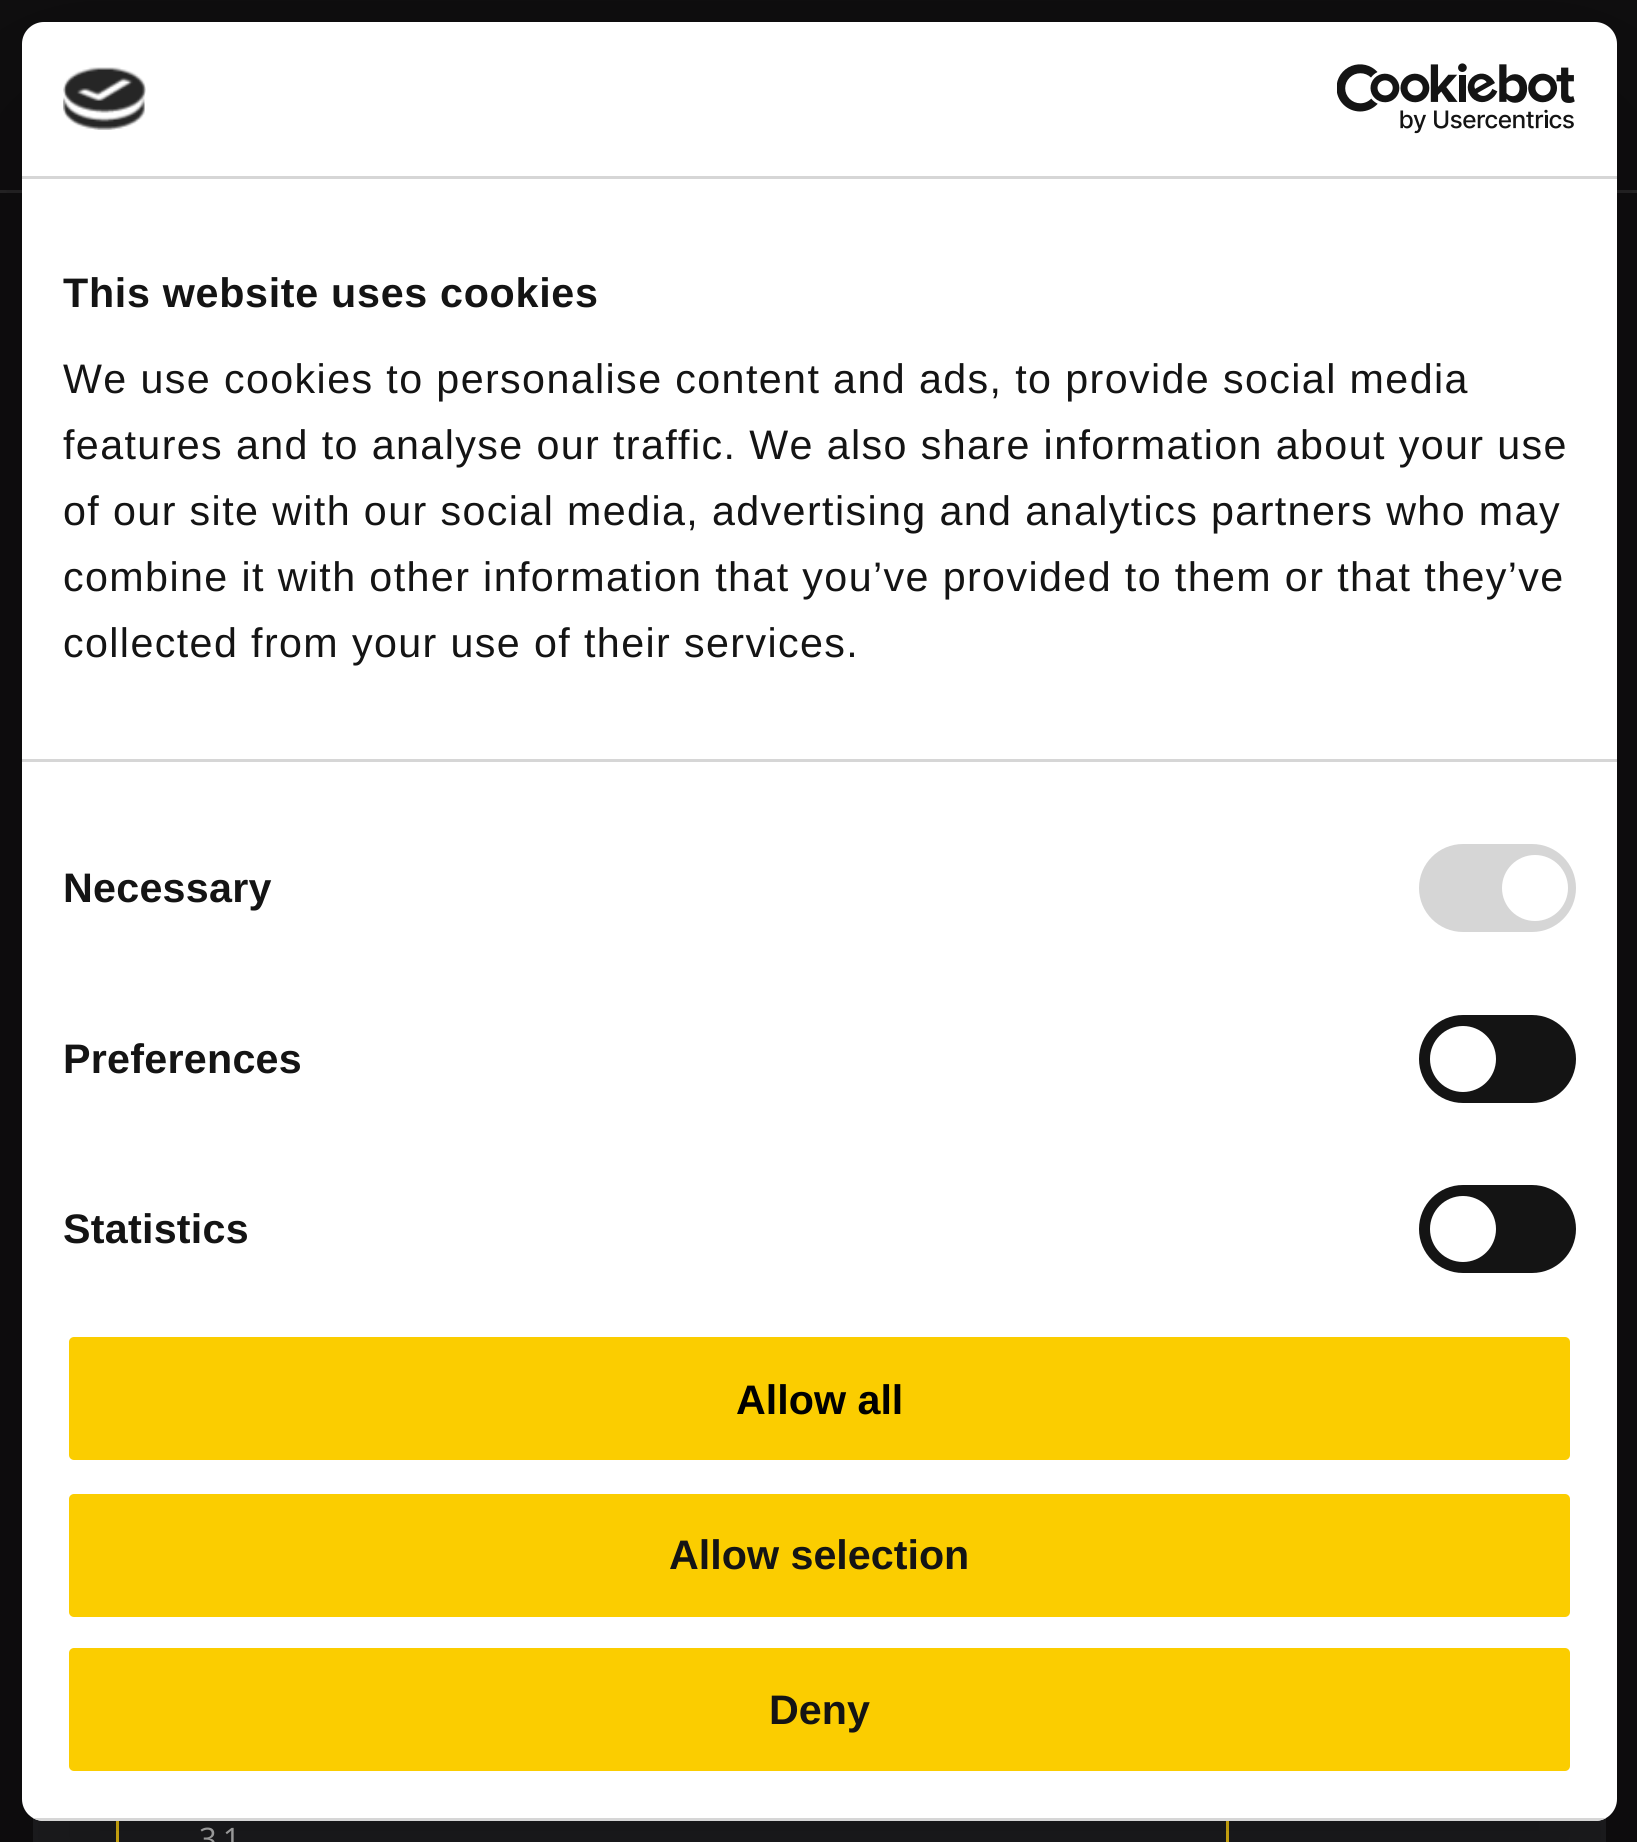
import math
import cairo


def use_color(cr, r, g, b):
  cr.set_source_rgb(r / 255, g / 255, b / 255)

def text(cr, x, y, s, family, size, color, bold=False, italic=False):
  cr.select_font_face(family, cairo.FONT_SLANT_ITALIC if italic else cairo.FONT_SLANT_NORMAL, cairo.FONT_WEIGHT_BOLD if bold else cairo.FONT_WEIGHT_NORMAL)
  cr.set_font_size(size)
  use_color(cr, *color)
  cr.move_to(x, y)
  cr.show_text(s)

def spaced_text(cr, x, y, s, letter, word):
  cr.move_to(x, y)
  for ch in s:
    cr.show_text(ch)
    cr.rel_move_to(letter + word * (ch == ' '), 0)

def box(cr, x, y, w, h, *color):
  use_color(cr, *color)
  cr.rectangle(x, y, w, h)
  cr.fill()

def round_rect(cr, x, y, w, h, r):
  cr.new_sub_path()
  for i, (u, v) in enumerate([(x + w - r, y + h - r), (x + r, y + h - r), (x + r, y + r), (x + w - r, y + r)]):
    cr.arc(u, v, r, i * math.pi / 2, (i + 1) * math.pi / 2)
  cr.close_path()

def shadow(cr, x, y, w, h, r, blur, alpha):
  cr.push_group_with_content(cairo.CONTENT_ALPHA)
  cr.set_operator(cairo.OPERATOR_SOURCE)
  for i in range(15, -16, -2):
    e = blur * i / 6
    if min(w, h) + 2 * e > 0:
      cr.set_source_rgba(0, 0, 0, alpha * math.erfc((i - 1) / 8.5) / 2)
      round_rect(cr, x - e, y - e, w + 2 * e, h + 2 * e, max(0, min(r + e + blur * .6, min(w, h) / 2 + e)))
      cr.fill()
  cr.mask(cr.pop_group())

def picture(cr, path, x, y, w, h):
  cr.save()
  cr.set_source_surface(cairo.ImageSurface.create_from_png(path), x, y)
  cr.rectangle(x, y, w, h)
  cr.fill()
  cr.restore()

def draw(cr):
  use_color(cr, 15, 14, 15)
  cr.paint()
  box(cr, 0, 190, 1637, 3, 39, 38, 39)
  box(cr, 33, 1818, 1573, 24, 31, 31, 33)
  cr.rectangle(117.5, 1459.5, 1110, 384)
  use_color(cr, 250, 204, 19)
  cr.set_line_width(3)
  cr.stroke()
  use_color(cr, 0, 0, 0)
  shadow(cr, 22, 110, 1595, 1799, 22, 93.5, 0.3)
  use_color(cr, 255, 255, 255)
  round_rect(cr, 22, 22, 1595, 1799, 22)
  cr.fill()
  box(cr, 22, 176, 1595, 3, 214, 214, 214)
  picture(cr, "img_01.png", 63, 67, 83, 63)
  picture(cr, "img_02.png", 1337, 63, 238, 71)
  box(cr, 22, 759, 1595, 3, 214, 214, 214)
  round_rect(cr, 1419, 844, 157, 88, 44)
  cr.fill()
  use_color(cr, 255, 255, 255)
  cr.arc(1535, 888, 33, 0, 2 * math.pi)
  cr.fill()
  use_color(cr, 20, 20, 20)
  round_rect(cr, 1419, 1015, 157, 88, 44)
  cr.fill()
  use_color(cr, 255, 255, 255)
  cr.arc(1463, 1059, 33, 0, 2 * math.pi)
  cr.fill()
  use_color(cr, 20, 20, 20)
  round_rect(cr, 1419, 1185, 157, 88, 44)
  cr.fill()
  use_color(cr, 255, 255, 255)
  cr.arc(1463, 1229, 33, 0, 2 * math.pi)
  cr.fill()
  cr.save()
  round_rect(cr, 22, 22, 1595, 1799, 22)
  cr.clip()
  box(cr, 33, 1818, 1573, 3, 214, 214, 214)
  cr.restore()
  use_color(cr, 251, 205, 0)
  round_rect(cr, 66, 1334, 1507, 129, 8)
  cr.fill_preserve()
  use_color(cr, 255, 255, 255)
  cr.set_line_width(6)
  cr.stroke()
  use_color(cr, 251, 205, 0)
  round_rect(cr, 66, 1491, 1507, 129, 8)
  cr.fill_preserve()
  use_color(cr, 255, 255, 255)
  cr.stroke()
  use_color(cr, 251, 205, 0)
  round_rect(cr, 66, 1645, 1507, 129, 8)
  cr.fill_preserve()
  use_color(cr, 255, 255, 255)
  cr.stroke()
  cr.select_font_face("Liberation Sans", cairo.FONT_SLANT_NORMAL, cairo.FONT_WEIGHT_BOLD)
  cr.set_font_size(41.25)
  use_color(cr, 20, 20, 20)
  spaced_text(cr, 63, 307, "This website uses cookies", 0.7, 0)
  cr.select_font_face("Liberation Sans")
  spaced_text(cr, 63, 393, "We use cookies to personalise content and ads, to provide social media", 1.38, 0)
  spaced_text(cr, 63, 459, "features and to analyse our traffic. We also share information about your use", 1.38, 0)
  spaced_text(cr, 63, 525, "of our site with our social media, advertising and analytics partners who may", 1.38, 0)
  spaced_text(cr, 63, 591, "combine it with other information that you’ve provided to them or that they’ve", 1.38, 0)
  spaced_text(cr, 63, 657, "collected from your use of their services.", 1.38, 0)
  cr.select_font_face("Liberation Sans", cairo.FONT_SLANT_NORMAL, cairo.FONT_WEIGHT_BOLD)
  spaced_text(cr, 63, 902, "Necessary", 0.25, 0)
  spaced_text(cr, 63, 1073, "Preferences", 0.25, 0)
  spaced_text(cr, 63, 1243, "Statistics", 0.25, 0)
  text(cr, 736, 1414, "Allow all", "Liberation Sans", 41.25, (0, 0, 0), bold=True)
  text(cr, 669, 1569, "Allow selection", "Liberation Sans", 41.25, (20, 20, 20), bold=True)
  text(cr, 769, 1724, "Deny", "Liberation Sans", 41.25, (20, 20, 20), bold=True)
  cr.select_font_face("Open Sans")
  cr.set_font_size(31)
  use_color(cr, 152, 152, 152)
  spaced_text(cr, 199, 1850, "3.1", -1, 0)


surface = cairo.ImageSurface(cairo.FORMAT_RGB24, 1637, 1842)
cr = cairo.Context(surface)
options = cairo.FontOptions()
options.set_hint_metrics(cairo.HINT_METRICS_OFF)
options.set_hint_style(cairo.HINT_STYLE_NONE)
cr.set_font_options(options)
cr.set_miter_limit(4)
draw(cr)
surface.write_to_png("out.png")
